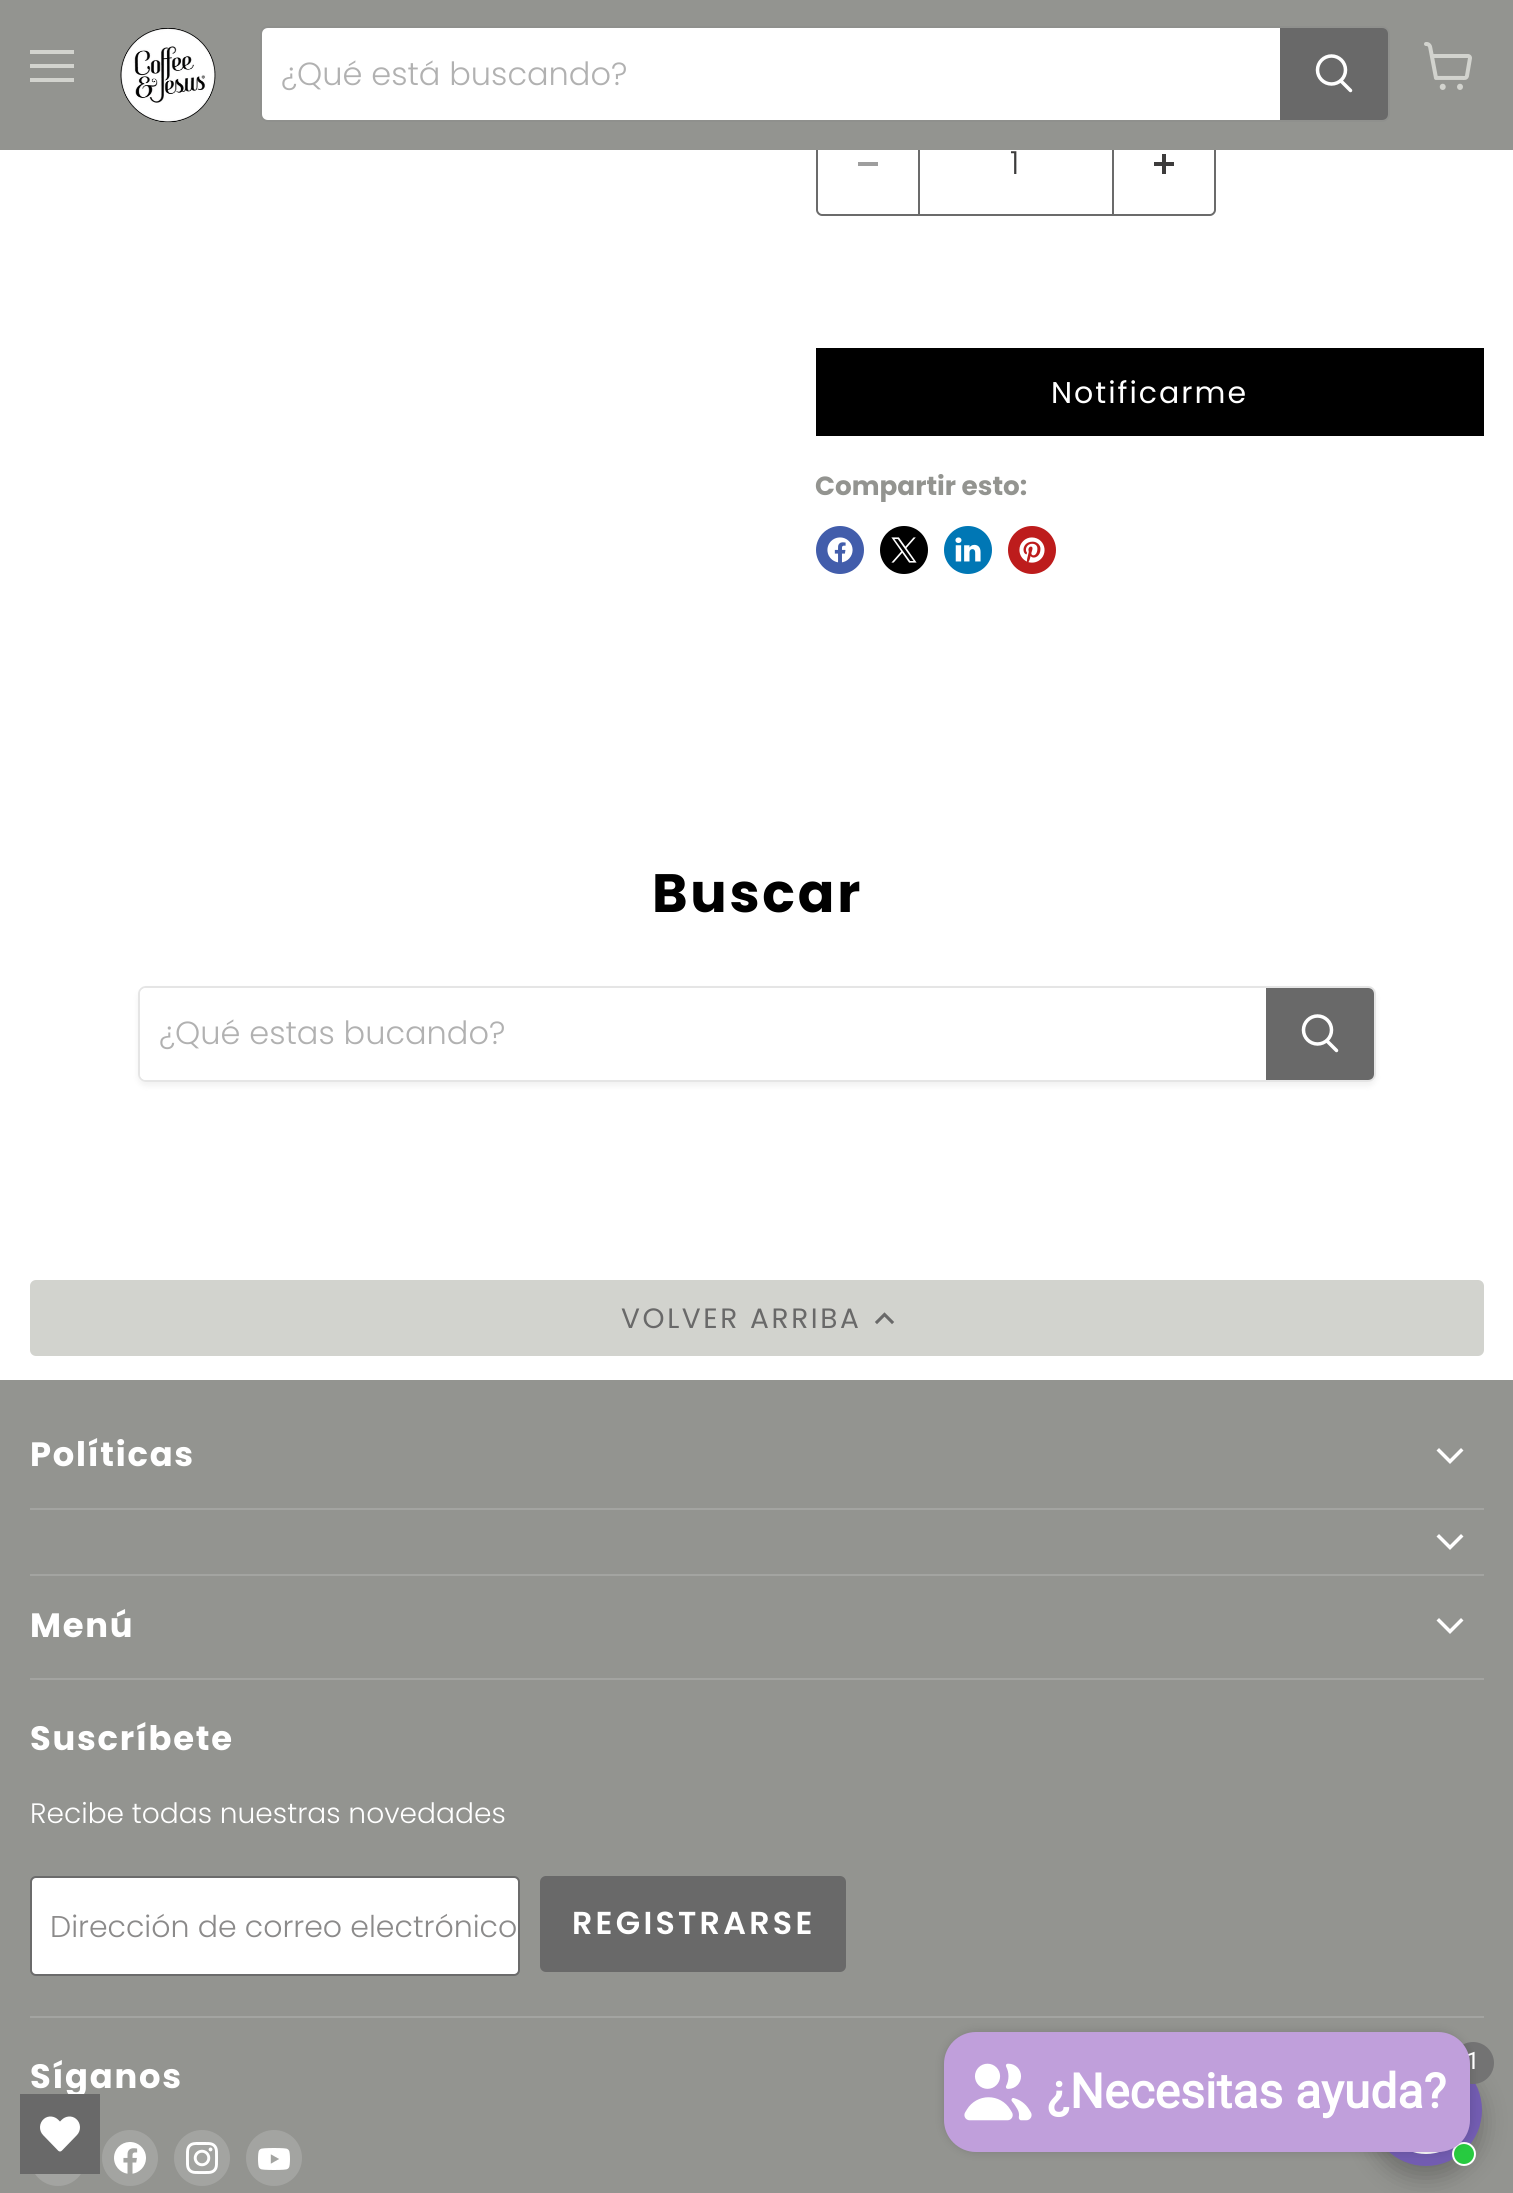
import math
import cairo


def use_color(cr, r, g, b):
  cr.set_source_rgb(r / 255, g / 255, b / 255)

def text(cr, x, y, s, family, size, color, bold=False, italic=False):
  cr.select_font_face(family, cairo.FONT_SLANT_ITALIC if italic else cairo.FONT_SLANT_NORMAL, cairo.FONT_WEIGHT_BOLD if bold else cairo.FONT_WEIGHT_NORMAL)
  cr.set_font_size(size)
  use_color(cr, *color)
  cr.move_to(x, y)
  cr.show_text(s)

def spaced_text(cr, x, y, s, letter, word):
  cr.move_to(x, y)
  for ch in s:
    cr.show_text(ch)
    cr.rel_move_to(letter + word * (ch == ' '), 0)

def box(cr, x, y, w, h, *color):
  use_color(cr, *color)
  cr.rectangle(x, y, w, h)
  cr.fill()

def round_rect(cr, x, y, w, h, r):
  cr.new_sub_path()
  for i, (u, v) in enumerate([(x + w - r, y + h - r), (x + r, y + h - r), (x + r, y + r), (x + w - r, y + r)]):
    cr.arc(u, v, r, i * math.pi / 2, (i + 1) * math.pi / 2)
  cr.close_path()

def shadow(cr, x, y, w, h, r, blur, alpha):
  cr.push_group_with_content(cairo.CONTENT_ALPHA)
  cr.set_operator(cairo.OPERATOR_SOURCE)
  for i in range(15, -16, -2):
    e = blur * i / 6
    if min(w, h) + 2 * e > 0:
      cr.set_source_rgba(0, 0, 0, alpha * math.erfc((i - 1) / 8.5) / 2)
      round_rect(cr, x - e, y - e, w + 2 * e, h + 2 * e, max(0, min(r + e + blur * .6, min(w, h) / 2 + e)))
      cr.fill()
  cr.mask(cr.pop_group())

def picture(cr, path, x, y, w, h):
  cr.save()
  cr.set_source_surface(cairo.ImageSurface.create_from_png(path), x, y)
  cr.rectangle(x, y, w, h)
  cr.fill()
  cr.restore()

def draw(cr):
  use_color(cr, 255, 255, 255)
  cr.paint()
  use_color(cr, 107, 107, 107)
  cr.set_fill_rule(cairo.FILL_RULE_EVEN_ODD)
  cr.new_path()
  cr.move_to(822, 112)
  cr.line_to(918, 112)
  cr.line_to(918, 216)
  cr.line_to(822, 216)
  cr.curve_to(819, 216, 816, 213, 816, 210)
  cr.line_to(816, 118)
  cr.curve_to(816, 115, 819, 112, 822, 112)
  cr.close_path()
  cr.move_to(822, 114)
  cr.line_to(918, 114)
  cr.line_to(918, 214)
  cr.line_to(822, 214)
  cr.curve_to(820, 214, 818, 212, 818, 210)
  cr.line_to(818, 118)
  cr.curve_to(818, 116, 820, 114, 822, 114)
  cr.close_path()
  cr.fill()
  cr.rectangle(919, 113, 194, 102)
  cr.stroke()
  cr.new_path()
  cr.move_to(1114, 112)
  cr.line_to(1210, 112)
  cr.curve_to(1213, 112, 1216, 115, 1216, 118)
  cr.line_to(1216, 210)
  cr.curve_to(1216, 213, 1213, 216, 1210, 216)
  cr.line_to(1114, 216)
  cr.close_path()
  cr.move_to(1114, 114)
  cr.line_to(1210, 114)
  cr.curve_to(1212, 114, 1214, 116, 1214, 118)
  cr.line_to(1214, 210)
  cr.curve_to(1214, 212, 1212, 214, 1210, 214)
  cr.line_to(1114, 214)
  cr.close_path()
  cr.fill()
  box(cr, 0, 0, 1513, 150, 147, 148, 144)
  box(cr, 30, 50, 44, 4, 210, 211, 206)
  box(cr, 30, 64, 44, 4, 210, 211, 206)
  box(cr, 30, 78, 44, 4, 210, 211, 206)
  picture(cr, "img_01.png", 120, 28, 96, 95)
  round_rect(cr, 261, 27, 1128, 94, 7)
  use_color(cr, 143, 144, 141)
  cr.stroke()
  use_color(cr, 255, 255, 255)
  cr.new_path()
  cr.move_to(268, 28)
  cr.line_to(1280, 28)
  cr.line_to(1280, 120)
  cr.line_to(268, 120)
  cr.curve_to(264.5, 120, 262, 117.5, 262, 114)
  cr.line_to(262, 34)
  cr.curve_to(262, 30.5, 264.5, 28, 268, 28)
  cr.close_path()
  cr.fill()
  use_color(cr, 105, 105, 105)
  cr.new_path()
  cr.move_to(1281, 29)
  cr.line_to(1382, 29)
  cr.curve_to(1385, 29, 1387, 31, 1387, 34)
  cr.line_to(1387, 114)
  cr.curve_to(1387, 117, 1385, 119, 1382, 119)
  cr.line_to(1281, 119)
  cr.close_path()
  cr.fill_preserve()
  cr.stroke()
  cr.new_path()
  cr.move_to(1350.5, 90.5)
  cr.line_to(1341, 81)
  use_color(cr, 255, 255, 255)
  cr.set_line_width(3.5)
  cr.set_line_cap(cairo.LINE_CAP_ROUND)
  cr.stroke()
  cr.arc(1331.5, 70, 14, 0, 2 * math.pi)
  cr.set_line_cap(cairo.LINE_CAP_BUTT)
  cr.stroke()
  picture(cr, "img_02.png", 1424, 42, 48, 48)
  box(cr, 858, 162, 20, 4, 158, 158, 158)
  picture(cr, "img_03.png", 1154, 154, 20, 20)
  box(cr, 816, 348, 668, 88, 0, 0, 0)
  use_color(cr, 66, 93, 171)
  cr.arc(840, 550, 24, 0, 2 * math.pi)
  cr.fill()
  picture(cr, "img_04.png", 827, 537, 26, 26)
  use_color(cr, 0, 0, 0)
  cr.arc(904, 550, 24, 0, 2 * math.pi)
  cr.fill()
  picture(cr, "img_05.png", 891, 537, 26, 26)
  use_color(cr, 0, 119, 181)
  cr.arc(968, 550, 24, 0, 2 * math.pi)
  cr.fill()
  picture(cr, "img_06.png", 955, 537, 26, 25)
  use_color(cr, 189, 28, 28)
  cr.arc(1032, 550, 24, 0, 2 * math.pi)
  cr.fill()
  picture(cr, "img_07.png", 1019, 537, 26, 26)
  cr.save()
  cr.new_path()
  cr.move_to(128, 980)
  cr.line_to(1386, 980)
  cr.line_to(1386, 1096)
  cr.line_to(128, 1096)
  cr.close_path()
  cr.move_to(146, 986)
  cr.line_to(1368, 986)
  cr.curve_to(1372.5, 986, 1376, 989.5, 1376, 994)
  cr.line_to(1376, 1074)
  cr.curve_to(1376, 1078.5, 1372.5, 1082, 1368, 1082)
  cr.line_to(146, 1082)
  cr.curve_to(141.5, 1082, 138, 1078.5, 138, 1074)
  cr.line_to(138, 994)
  cr.curve_to(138, 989.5, 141.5, 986, 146, 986)
  cr.close_path()
  cr.clip()
  use_color(cr, 128, 128, 128)
  shadow(cr, 138, 990, 1238, 96, 8, 3, 0.11)
  cr.restore()
  round_rect(cr, 139, 987, 1236, 94, 7)
  cr.set_source_rgba(0.502, 0.502, 0.502, 0.2)
  cr.set_line_width(2)
  cr.stroke()
  use_color(cr, 255, 255, 255)
  cr.new_path()
  cr.move_to(146, 988)
  cr.line_to(1266, 988)
  cr.line_to(1266, 1080)
  cr.line_to(146, 1080)
  cr.curve_to(142.5, 1080, 140, 1077.5, 140, 1074)
  cr.line_to(140, 994)
  cr.curve_to(140, 990.5, 142.5, 988, 146, 988)
  cr.close_path()
  cr.fill()
  use_color(cr, 105, 105, 105)
  cr.new_path()
  cr.move_to(1267, 989)
  cr.line_to(1368, 989)
  cr.curve_to(1371, 989, 1373, 991, 1373, 994)
  cr.line_to(1373, 1074)
  cr.curve_to(1373, 1077, 1371, 1079, 1368, 1079)
  cr.line_to(1267, 1079)
  cr.close_path()
  cr.fill_preserve()
  cr.stroke()
  cr.new_path()
  cr.move_to(1336.5, 1050.5)
  cr.line_to(1327, 1041)
  use_color(cr, 255, 255, 255)
  cr.set_line_width(3.5)
  cr.set_line_cap(cairo.LINE_CAP_ROUND)
  cr.stroke()
  cr.arc(1317.5, 1030, 14, 0, 2 * math.pi)
  cr.set_line_cap(cairo.LINE_CAP_BUTT)
  cr.stroke()
  use_color(cr, 210, 211, 206)
  round_rect(cr, 31, 1281, 1452, 74, 5)
  cr.fill_preserve()
  cr.set_line_width(2)
  cr.stroke()
  cr.new_path()
  cr.move_to(884.5, 1314.5)
  cr.line_to(877, 1322)
  cr.move_to(884.5, 1314.5)
  cr.line_to(892, 1322)
  use_color(cr, 105, 105, 105)
  cr.set_line_width(3.1)
  cr.set_line_cap(cairo.LINE_CAP_SQUARE)
  cr.stroke()
  box(cr, 0, 1380, 1513, 813, 147, 148, 144)
  box(cr, 30, 1508, 1454, 2, 163, 164, 161)
  cr.new_path()
  cr.move_to(1450, 1461.5)
  cr.line_to(1461, 1450.5)
  cr.move_to(1450, 1461.5)
  cr.line_to(1439, 1450.5)
  use_color(cr, 255, 255, 255)
  cr.set_line_width(3.5)
  cr.stroke()
  box(cr, 30, 1574, 1454, 2, 163, 164, 161)
  cr.new_path()
  cr.move_to(1450, 1547.5)
  cr.line_to(1461, 1536.5)
  cr.move_to(1450, 1547.5)
  cr.line_to(1439, 1536.5)
  use_color(cr, 255, 255, 255)
  cr.stroke()
  box(cr, 30, 1678, 1454, 2, 163, 164, 161)
  cr.new_path()
  cr.move_to(1450, 1631.5)
  cr.line_to(1461, 1620.5)
  cr.move_to(1450, 1631.5)
  cr.line_to(1439, 1620.5)
  use_color(cr, 255, 255, 255)
  cr.stroke()
  box(cr, 30, 2016, 1454, 2, 163, 164, 161)
  use_color(cr, 255, 255, 255)
  round_rect(cr, 31, 1877, 488, 98, 5)
  cr.fill_preserve()
  use_color(cr, 107, 107, 107)
  cr.set_line_width(2)
  cr.set_line_cap(cairo.LINE_CAP_BUTT)
  cr.stroke()
  use_color(cr, 105, 105, 105)
  round_rect(cr, 541, 1877, 304, 94, 5)
  cr.fill_preserve()
  cr.stroke()
  use_color(cr, 163, 164, 161)
  cr.arc(58, 2158, 28, 0, 2 * math.pi)
  cr.fill()
  cr.arc(130, 2158, 28, 0, 2 * math.pi)
  cr.fill()
  picture(cr, "img_08.png", 114, 2142, 32, 32)
  cr.arc(202, 2158, 28, 0, 2 * math.pi)
  cr.fill()
  picture(cr, "img_09.png", 186, 2142, 32, 32)
  cr.arc(274, 2158, 28, 0, 2 * math.pi)
  cr.fill()
  picture(cr, "img_10.png", 258, 2148, 32, 22)
  use_color(cr, 0, 0, 0)
  shadow(cr, 1370, 2066, 112, 112, 56, 12, 0.25)
  use_color(cr, 114, 92, 177)
  cr.arc(1426, 2110, 56, 0, 2 * math.pi)
  cr.fill()
  use_color(cr, 255, 255, 255)
  cr.arc(1426, 2110, 44, 0, 2 * math.pi)
  cr.fill()
  use_color(cr, 39, 202, 64)
  cr.arc(1464, 2154, 11, 0, 2 * math.pi)
  cr.fill_preserve()
  use_color(cr, 255, 255, 255)
  cr.stroke()
  use_color(cr, 115, 115, 115)
  cr.arc(1473, 2063, 21, 0, 2 * math.pi)
  cr.fill()
  use_color(cr, 0, 0, 0)
  shadow(cr, 944, 2032, 526, 120, 32, 5, 0.15)
  text(cr, 281, 85, "¿Qué está buscando?", "Poppins Light", 32, (177, 177, 177))
  text(cr, 1010, 174, "1", "Poppins Light", 31.75, (61, 60, 60))
  cr.select_font_face("Poppins")
  cr.set_font_size(30)
  use_color(cr, 255, 255, 255)
  spaced_text(cr, 1051, 403, "Notificarme", 2, 0)
  text(cr, 815, 495, "Compartir esto:", "Poppins", 26.25, (147, 148, 144), bold=True)
  cr.set_font_size(54)
  use_color(cr, 0, 0, 0)
  spaced_text(cr, 652, 912, "Buscar", 2.75, 0)
  text(cr, 159, 1044, "¿Qué estas bucando?", "Poppins Light", 32, (177, 177, 177))
  cr.select_font_face("Poppins")
  cr.set_font_size(28)
  use_color(cr, 105, 105, 105)
  spaced_text(cr, 621, 1328, "VOLVER ARRIBA", 2.6, 0)
  cr.select_font_face("Poppins", cairo.FONT_SLANT_NORMAL, cairo.FONT_WEIGHT_BOLD)
  cr.set_font_size(33.75)
  use_color(cr, 255, 255, 255)
  spaced_text(cr, 30, 1466, "Políticas", 1.75, 0)
  spaced_text(cr, 30, 1637, "Menú", 1.75, 0)
  spaced_text(cr, 30, 1750, "Suscríbete", 1.75, 0)
  text(cr, 30, 1823, "Recibe todas nuestras novedades", "Poppins Light", 28.1, (255, 255, 255))
  text(cr, 50, 1937, "Dirección de correo electrónico", "Poppins Light", 30, (139, 138, 138))
  cr.select_font_face("Poppins SemiBold")
  cr.set_font_size(31.75)
  use_color(cr, 255, 255, 255)
  spaced_text(cr, 572, 1934, "REGISTRARSE", 3.25, 0)
  cr.select_font_face("Poppins", cairo.FONT_SLANT_NORMAL, cairo.FONT_WEIGHT_BOLD)
  cr.set_font_size(33.75)
  spaced_text(cr, 30, 2088, "Síganos", 1.75, 0)
  text(cr, 1466, 2069, "1", "Roboto", 24, (255, 255, 255))
  box(cr, 20, 2094, 80, 80, 105, 105, 105)
  picture(cr, "img_11.png", 40, 2116, 40, 36)
  use_color(cr, 192, 159, 219)
  round_rect(cr, 944, 2032, 526, 120, 32)
  cr.fill()
  picture(cr, "img_12.png", 964, 2063, 68, 58)
  text(cr, 1047, 2108, "¿Necesitas ayuda?", "Roboto", 48, (255, 255, 255), bold=True)


surface = cairo.ImageSurface(cairo.FORMAT_RGB24, 1513, 2193)
cr = cairo.Context(surface)
options = cairo.FontOptions()
options.set_hint_metrics(cairo.HINT_METRICS_OFF)
options.set_hint_style(cairo.HINT_STYLE_NONE)
cr.set_font_options(options)
cr.set_miter_limit(4)
draw(cr)
surface.write_to_png("out.png")
